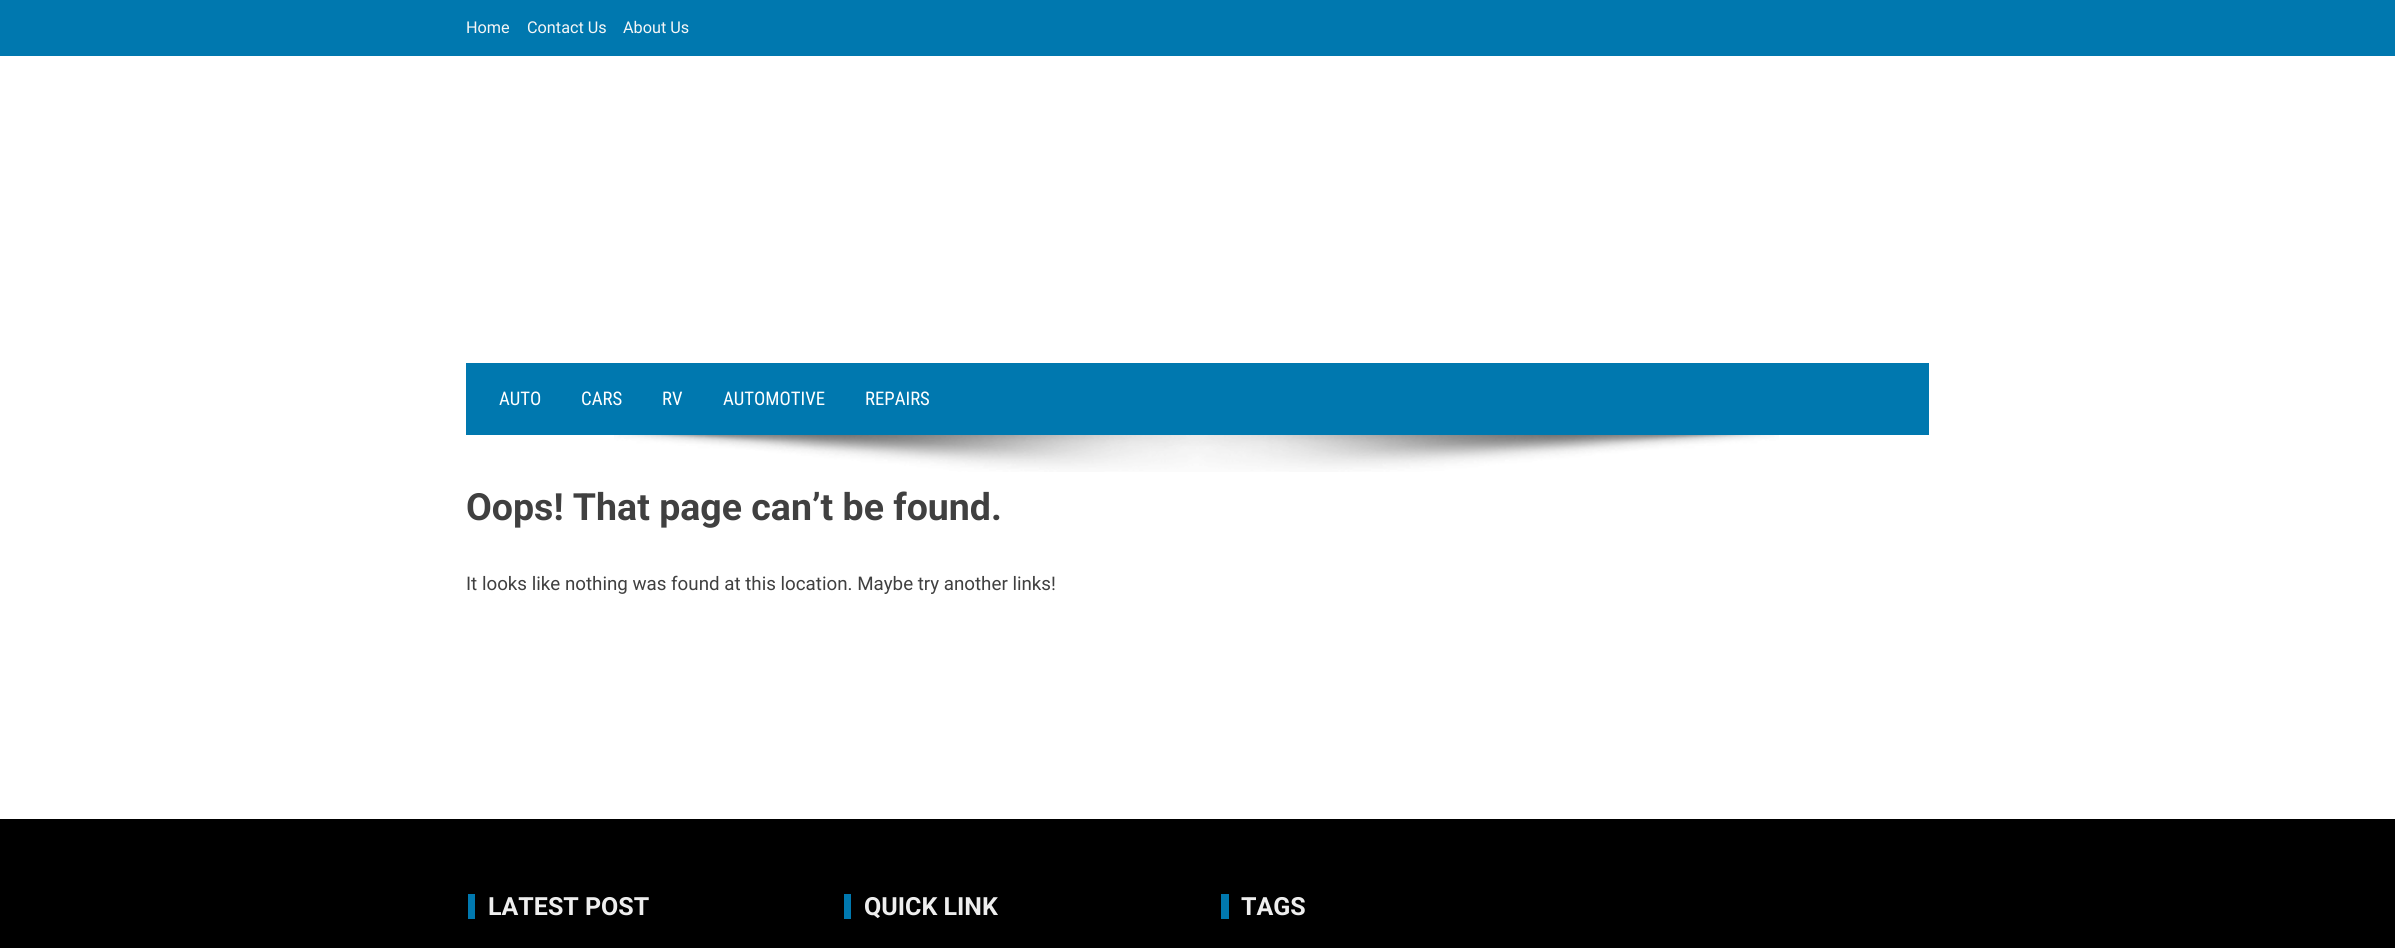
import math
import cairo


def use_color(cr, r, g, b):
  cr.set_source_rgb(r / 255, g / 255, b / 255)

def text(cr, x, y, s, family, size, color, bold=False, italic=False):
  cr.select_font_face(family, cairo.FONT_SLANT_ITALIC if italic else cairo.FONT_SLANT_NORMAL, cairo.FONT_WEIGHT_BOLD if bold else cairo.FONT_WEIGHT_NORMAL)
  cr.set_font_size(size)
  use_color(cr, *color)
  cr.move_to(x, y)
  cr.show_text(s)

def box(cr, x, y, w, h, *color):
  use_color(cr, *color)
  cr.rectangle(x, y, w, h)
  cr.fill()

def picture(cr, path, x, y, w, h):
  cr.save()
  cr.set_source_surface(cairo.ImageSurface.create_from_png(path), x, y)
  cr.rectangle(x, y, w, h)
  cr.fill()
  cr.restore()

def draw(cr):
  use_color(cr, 255, 255, 255)
  cr.paint()
  box(cr, 0, 0, 2395, 56, 0, 120, 175)
  box(cr, 466, 363, 1463, 72, 0, 120, 175)
  picture(cr, "img_01.png", 614, 435, 1165, 37)
  box(cr, 0, 819, 2395, 129, 0, 0, 0)
  box(cr, 468, 894, 7, 25, 0, 120, 175)
  box(cr, 844, 894, 7, 25, 0, 120, 175)
  box(cr, 1221, 894, 8, 25, 0, 120, 175)
  text(cr, 466, 33, "Home", "Roboto", 16.25, (246, 246, 246))
  text(cr, 527, 33, "Contact Us", "Roboto", 16.25, (246, 246, 246))
  text(cr, 623, 33, "About Us", "Roboto", 16.25, (246, 246, 246))
  text(cr, 499, 405, "AUTO", "Roboto Condensed", 18.75, (255, 255, 255))
  text(cr, 581, 405, "CARS", "Roboto Condensed", 18.75, (255, 255, 255))
  text(cr, 662, 405, "RV", "Roboto Condensed", 18.75, (255, 255, 255))
  text(cr, 723, 405, "AUTOMOTIVE", "Roboto Condensed", 18.75, (255, 255, 255))
  text(cr, 865, 405, "REPAIRS", "Roboto Condensed", 18.75, (255, 255, 255))
  text(cr, 466, 520, "Oops! That page can’t be found.", "Roboto", 37.5, (64, 64, 64), bold=True)
  text(cr, 466, 590, "It looks like nothing was found at this location. Maybe try another links!", "Roboto", 18.75, (64, 64, 64))
  text(cr, 488, 915, "LATEST POST", "Roboto", 25, (238, 238, 238), bold=True)
  text(cr, 864, 915, "QUICK LINK", "Roboto", 25, (238, 238, 238), bold=True)
  text(cr, 1241, 915, "TAGS", "Roboto", 25, (238, 238, 238), bold=True)


surface = cairo.ImageSurface(cairo.FORMAT_RGB24, 2395, 948)
cr = cairo.Context(surface)
options = cairo.FontOptions()
options.set_hint_metrics(cairo.HINT_METRICS_OFF)
options.set_hint_style(cairo.HINT_STYLE_NONE)
cr.set_font_options(options)
cr.set_miter_limit(4)
draw(cr)
surface.write_to_png("out.png")
